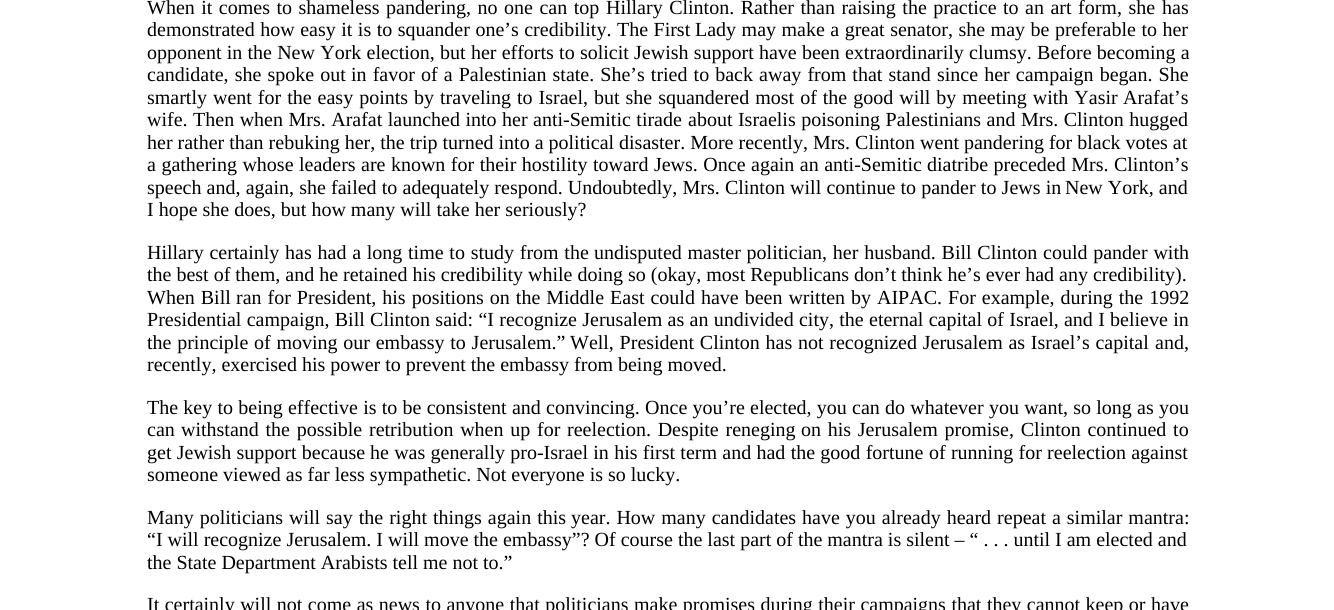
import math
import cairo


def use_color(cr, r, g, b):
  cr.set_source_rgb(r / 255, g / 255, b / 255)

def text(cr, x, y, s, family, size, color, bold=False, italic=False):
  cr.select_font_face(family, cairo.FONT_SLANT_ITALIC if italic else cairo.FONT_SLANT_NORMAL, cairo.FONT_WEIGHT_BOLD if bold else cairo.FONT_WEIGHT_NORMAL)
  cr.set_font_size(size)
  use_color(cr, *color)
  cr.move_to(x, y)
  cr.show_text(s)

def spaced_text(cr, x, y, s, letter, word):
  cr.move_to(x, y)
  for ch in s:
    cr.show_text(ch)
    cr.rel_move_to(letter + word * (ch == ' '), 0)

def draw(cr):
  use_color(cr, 255, 255, 255)
  cr.paint()
  cr.select_font_face("Liberation Serif")
  cr.set_font_size(20)
  use_color(cr, 0, 0, 0)
  spaced_text(cr, 147, 14, "When it comes to shameless pandering, no one can top", 0, 1.5)
  spaced_text(cr, 606, 14, "Hillary Clinton. Rather than raising the practice to an art form, she", 0, 1.5)
  text(cr, 1162, 14, "has", "Liberation Serif", 20, (0, 0, 0))
  spaced_text(cr, 147, 36, "demonstrated how easy it is to squander one’s credibility. The First", 0, 0.5)
  spaced_text(cr, 695, 36, "Lady may make a great senator, she may be preferable to her", 0, 0.5)
  spaced_text(cr, 147, 59, "opponent in the New York election, but her efforts to solicit Jewish support have been extraordinarily clumsy. Before becoming a", 0, 0.25)
  spaced_text(cr, 147, 81, "candidate, she spoke out", 0, 1.1)
  spaced_text(cr, 351, 81, "in favor of a Palestinian state. She’s tried to back away from that stand", 0, 1.1)
  spaced_text(cr, 937, 81, "since her campaign began. She", 0, 1.1)
  spaced_text(cr, 147, 104, "smartly went for the easy points by traveling", 0, 1)
  spaced_text(cr, 517, 104, "to Israel, but she squandered most of the good will by meeting with Yasir", 0, 1)
  text(cr, 1123, 104, "Arafat’s", "Liberation Serif", 20, (0, 0, 0))
  spaced_text(cr, 147, 126, "wife. Then when Mrs. Arafat launched into her anti-Semitic tirade", 0, 0.5)
  spaced_text(cr, 688, 126, "about Israelis poisoning Palestinians and Mrs. Clinton hugged", 0, 0.5)
  text(cr, 147, 149, "her rather than rebuking her, the trip turned into a political disaster. More recently, Mrs. Clinton went pandering for black votes at", "Liberation Serif", 20, (0, 0, 0))
  spaced_text(cr, 147, 171, "a gathering whose leaders", 0, 0.5)
  spaced_text(cr, 361, 171, "are known for their hostility toward Jews. Once again an anti-Semitic", 0, 0.5)
  spaced_text(cr, 927, 171, "diatribe preceded Mrs. Clinton’s", 0, 0.5)
  spaced_text(cr, 147, 194, "speech and, again, she failed to adequately respond. Undoubtedly, Mrs. Clinton will continue to pander to Jews in", 0, 0.2)
  text(cr, 1065, 194, "New York, and", "Liberation Serif", 20, (0, 0, 0))
  text(cr, 147, 216, "I hope she does, but how many will take her seriously?", "Liberation Serif", 20, (0, 0, 0))
  spaced_text(cr, 147, 259, "Hillary certainly has had a long time to study from the", 0, 0.75)
  spaced_text(cr, 594, 259, "undisputed master politician, her husband. Bill Clinton could pander with", 0, 0.75)
  text(cr, 147, 281, "the best of them, and he retained his credibility while doing so (okay, most Republicans don’t think he’s ever had any credibility).", "Liberation Serif", 20, (0, 0, 0))
  spaced_text(cr, 147, 304, "When Bill", 0, 1)
  spaced_text(cr, 236, 304, "ran for President, his positions on the Middle East could have been written", 0, 1)
  spaced_text(cr, 851, 304, "by AIPAC. For example, during the 1992", 0, 1)
  spaced_text(cr, 147, 326, "Presidential campaign, Bill Clinton said: “I recognize Jerusalem as an undivided city, the eternal capital of Israel, and I believe in", 0, 0.3)
  spaced_text(cr, 147, 349, "the principle of moving our embassy to Jerusalem.”", 0, 0.75)
  spaced_text(cr, 570, 349, "Well, President Clinton has not recognized Jerusalem as Israel’s capital", 0, 0.75)
  text(cr, 1155, 349, "and,", "Liberation Serif", 20, (0, 0, 0))
  text(cr, 147, 371, "recently, exercised his power to prevent the embassy from being moved.", "Liberation Serif", 20, (0, 0, 0))
  spaced_text(cr, 147, 414, "The key to being effective is to be consistent and convincing. Once you’re elected, you can do whatever you want, so long as you", 0, 0.25)
  text(cr, 147, 436, "can", "Liberation Serif", 20, (0, 0, 0))
  spaced_text(cr, 181, 436, "withstand the possible retribution when up for reelection. Despite reneging", 0, 1.75)
  spaced_text(cr, 801, 436, "on his Jerusalem promise, Clinton continued to", 0, 1.75)
  spaced_text(cr, 147, 459, "get Jewish support because", 0, 0.3)
  spaced_text(cr, 370, 459, "he was generally pro-Israel in his first term and had the good fortune", 0, 0.3)
  spaced_text(cr, 929, 459, "of running for reelection against", 0, 0.3)
  text(cr, 147, 481, "someone viewed as far less sympathetic. Not everyone is so lucky.", "Liberation Serif", 20, (0, 0, 0))
  spaced_text(cr, 147, 524, "Many politicians will say the right things again this", 0, 1)
  spaced_text(cr, 571, 524, "year. How many candidates have you already heard repeat a similar mantra:", 0, 1)
  text(cr, 147, 546, "“I will recognize Jerusalem. I will move the embassy”? Of course the last part of the mantra is silent – “ . . . until I am elected and", "Liberation Serif", 20, (0, 0, 0))
  text(cr, 147, 569, "the State Department Arabists tell me not to.”", "Liberation Serif", 20, (0, 0, 0))
  spaced_text(cr, 147, 611, "It certainly will not come as news to anyone that politicians", 0, 0.5)
  spaced_text(cr, 634, 611, "make promises during their campaigns that they cannot keep or have", 0, 0.5)


surface = cairo.ImageSurface(cairo.FORMAT_RGB24, 1334, 610)
cr = cairo.Context(surface)
options = cairo.FontOptions()
options.set_hint_metrics(cairo.HINT_METRICS_OFF)
options.set_hint_style(cairo.HINT_STYLE_NONE)
cr.set_font_options(options)
cr.set_miter_limit(4)
draw(cr)
surface.write_to_png("out.png")
